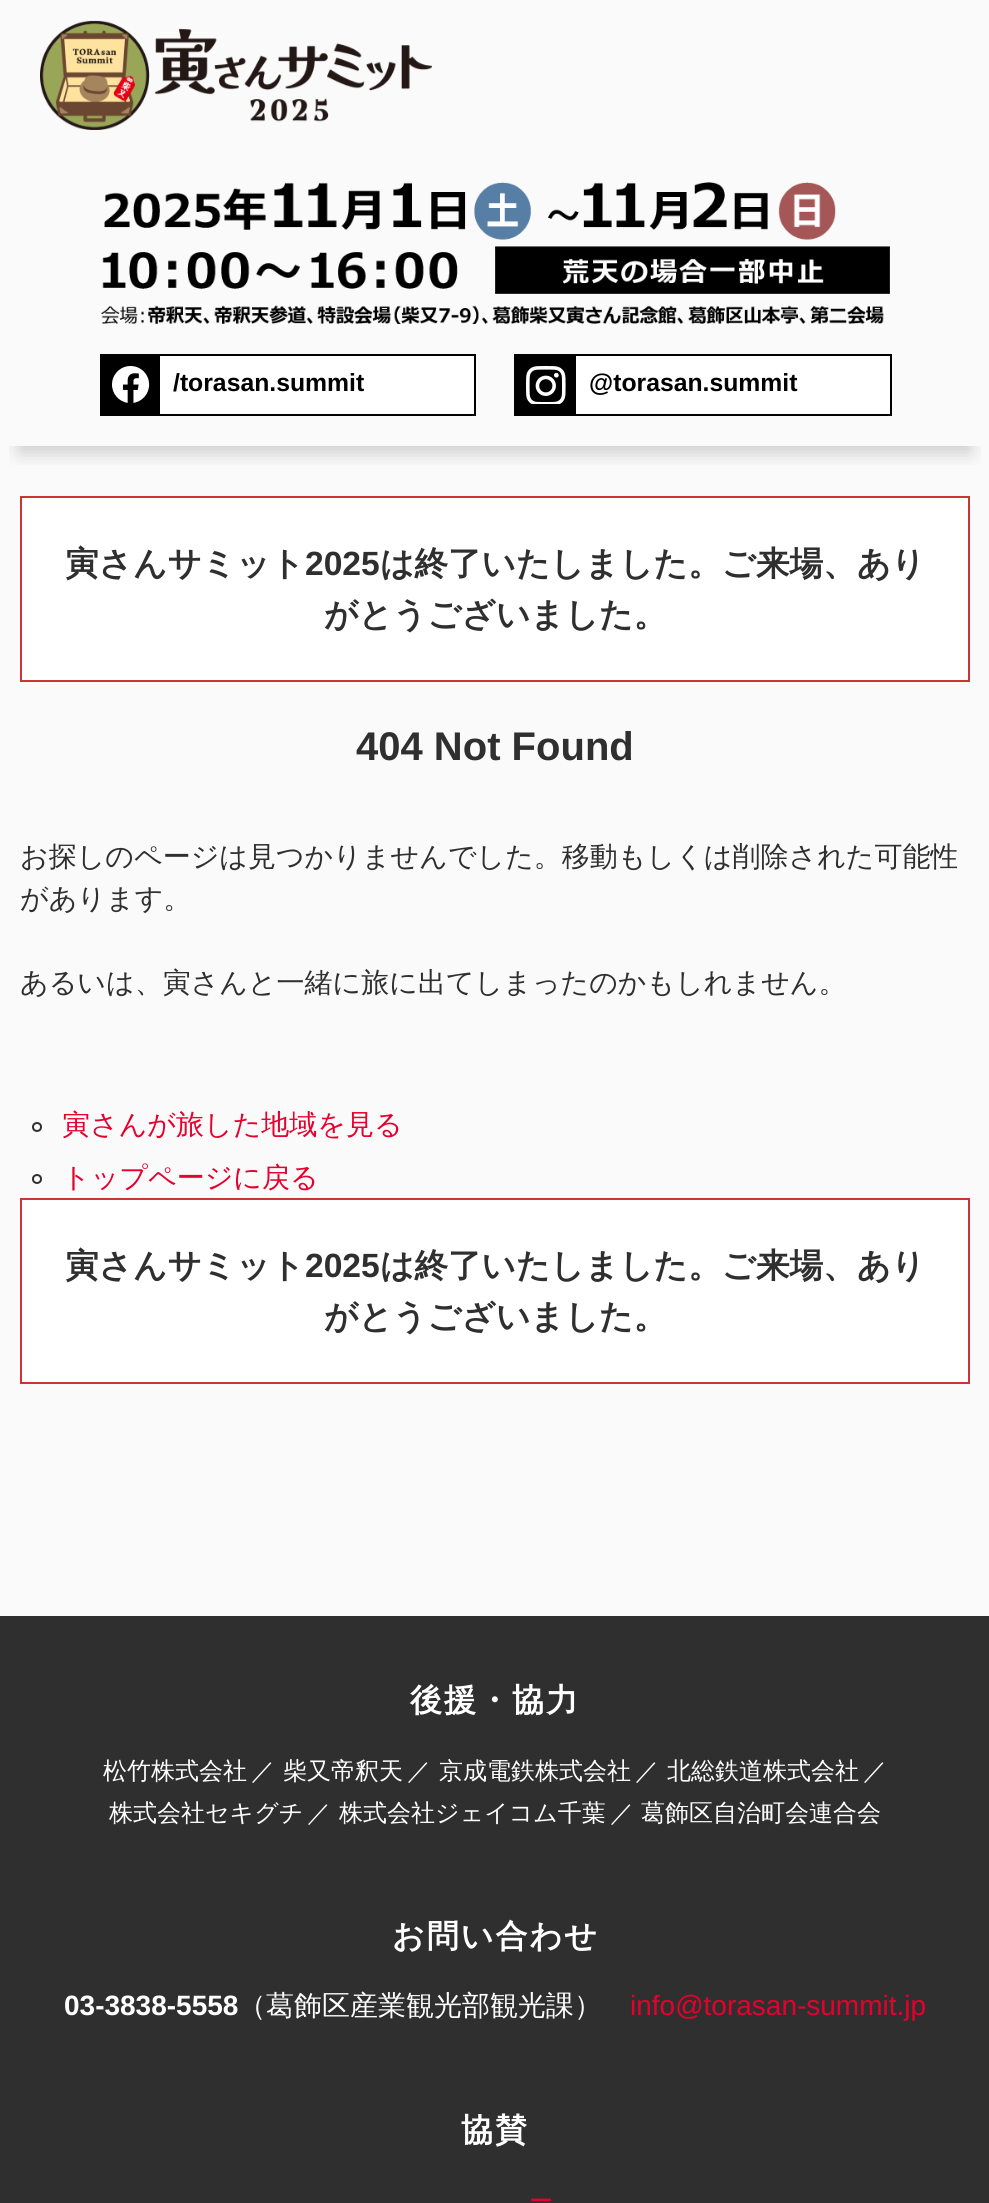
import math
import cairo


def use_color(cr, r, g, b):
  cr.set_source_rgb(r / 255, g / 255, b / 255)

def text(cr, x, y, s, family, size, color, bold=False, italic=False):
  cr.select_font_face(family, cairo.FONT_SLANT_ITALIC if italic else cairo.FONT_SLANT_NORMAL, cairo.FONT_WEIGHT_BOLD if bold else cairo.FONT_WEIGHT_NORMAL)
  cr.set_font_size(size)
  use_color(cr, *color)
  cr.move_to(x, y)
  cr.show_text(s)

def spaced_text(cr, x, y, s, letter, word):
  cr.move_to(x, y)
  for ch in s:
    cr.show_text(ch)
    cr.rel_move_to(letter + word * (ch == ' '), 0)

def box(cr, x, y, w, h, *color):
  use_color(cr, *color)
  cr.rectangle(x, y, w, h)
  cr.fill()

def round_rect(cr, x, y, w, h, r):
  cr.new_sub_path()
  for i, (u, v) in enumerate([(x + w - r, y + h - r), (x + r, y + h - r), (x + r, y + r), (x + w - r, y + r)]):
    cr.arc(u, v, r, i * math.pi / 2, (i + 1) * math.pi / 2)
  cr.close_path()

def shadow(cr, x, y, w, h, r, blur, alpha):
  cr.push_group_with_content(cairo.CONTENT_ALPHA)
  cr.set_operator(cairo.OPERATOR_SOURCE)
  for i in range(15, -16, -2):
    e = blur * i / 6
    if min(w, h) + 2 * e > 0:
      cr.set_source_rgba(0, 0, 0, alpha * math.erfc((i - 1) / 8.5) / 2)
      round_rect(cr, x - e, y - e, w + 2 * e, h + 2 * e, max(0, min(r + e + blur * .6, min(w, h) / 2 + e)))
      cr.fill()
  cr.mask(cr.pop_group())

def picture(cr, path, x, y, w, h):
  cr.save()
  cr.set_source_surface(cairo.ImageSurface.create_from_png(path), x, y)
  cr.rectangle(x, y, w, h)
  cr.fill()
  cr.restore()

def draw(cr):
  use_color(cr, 250, 250, 250)
  cr.paint()
  picture(cr, "img_01.png", 40, 20, 392, 110)
  cr.save()
  cr.rectangle(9, 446, 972, 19)
  cr.clip()
  use_color(cr, 0, 0, 0)
  shadow(cr, 20, 198, 950, 254, 0, 10, 0.2)
  cr.restore()
  picture(cr, "img_02.png", 101, 182, 789, 142)
  box(cr, 160, 356, 314, 58, 255, 255, 255)
  cr.rectangle(101, 355, 374, 60)
  use_color(cr, 0, 0, 0)
  cr.stroke()
  box(cr, 102, 356, 58, 58, 0, 0, 0)
  picture(cr, "img_03.png", 112, 366, 38, 37)
  box(cr, 576, 356, 314, 58, 255, 255, 255)
  cr.rectangle(515, 355, 376, 60)
  use_color(cr, 0, 0, 0)
  cr.stroke()
  box(cr, 516, 356, 60, 58, 0, 0, 0)
  picture(cr, "img_04.png", 526, 366, 40, 38)
  use_color(cr, 255, 255, 255)
  cr.rectangle(21, 497, 948, 184)
  cr.fill_preserve()
  use_color(cr, 204, 51, 51)
  cr.stroke()
  cr.arc(37, 1127, 4, 0, 2 * math.pi)
  use_color(cr, 47, 47, 47)
  cr.stroke()
  cr.arc(37, 1179, 4, 0, 2 * math.pi)
  cr.stroke()
  use_color(cr, 255, 255, 255)
  cr.rectangle(21, 1199, 948, 184)
  cr.fill_preserve()
  use_color(cr, 204, 51, 51)
  cr.stroke()
  box(cr, 0, 1616, 989, 587, 47, 47, 47)
  text(cr, 173, 391, "/torasan.summit", "Liberation Sans", 24.75, (0, 0, 0), bold=True)
  text(cr, 589, 391, "@torasan.summit", "Liberation Sans", 24.75, (0, 0, 0), bold=True)
  text(cr, 65, 575, "寅さんサミット", "WenQuanYi Zen Hei", 33.6, (47, 47, 47), bold=True)
  text(cr, 305, 575, "2025", "Liberation Sans", 33.6, (47, 47, 47), bold=True)
  text(cr, 380, 575, "は終了いたしました。ご来場、あり", "WenQuanYi Zen Hei", 33.6, (47, 47, 47), bold=True)
  text(cr, 324, 626, "がとうございました。", "WenQuanYi Zen Hei", 33.6, (47, 47, 47), bold=True)
  text(cr, 356, 760, "404 Not Found", "Liberation Sans", 40, (47, 47, 47), bold=True)
  text(cr, 20, 866, "お探しのページは見つかりませんでした。移動もしくは削除された可能性", "WenQuanYi Zen Hei Medium", 28, (47, 47, 47))
  text(cr, 20, 908, "があります。", "WenQuanYi Zen Hei Medium", 28, (47, 47, 47))
  text(cr, 20, 992, "あるいは、寅さんと一緒に旅に出てしまったのかもしれません。", "WenQuanYi Zen Hei Medium", 28, (47, 47, 47))
  text(cr, 62, 1134, "寅さんが旅した地域を見る", "WenQuanYi Zen Hei Medium", 28, (230, 0, 45))
  text(cr, 62, 1187, "トップページに戻る", "WenQuanYi Zen Hei Medium", 28, (230, 0, 45))
  text(cr, 65, 1277, "寅さんサミット", "WenQuanYi Zen Hei", 33.6, (47, 47, 47), bold=True)
  text(cr, 305, 1277, "2025", "Liberation Sans", 33.6, (47, 47, 47), bold=True)
  text(cr, 380, 1277, "は終了いたしました。ご来場、あり", "WenQuanYi Zen Hei", 33.6, (47, 47, 47), bold=True)
  text(cr, 324, 1328, "がとうございました。", "WenQuanYi Zen Hei", 33.6, (47, 47, 47), bold=True)
  cr.set_font_size(32)
  use_color(cr, 255, 255, 255)
  spaced_text(cr, 410, 1711, "後援・協力", 2, 0)
  text(cr, 103, 1779, "松竹株式会社", "WenQuanYi Zen Hei Medium", 24, (255, 255, 255))
  text(cr, 251, 1779, "／", "WenQuanYi Zen Hei Medium", 24, (255, 255, 255))
  text(cr, 283, 1779, "柴又帝釈天", "WenQuanYi Zen Hei Medium", 24, (255, 255, 255))
  text(cr, 407, 1779, "／", "WenQuanYi Zen Hei Medium", 24, (255, 255, 255))
  text(cr, 439, 1779, "京成電鉄株式会社", "WenQuanYi Zen Hei Medium", 24, (255, 255, 255))
  text(cr, 635, 1779, "／", "WenQuanYi Zen Hei Medium", 24, (255, 255, 255))
  text(cr, 667, 1779, "北総鉄道株式会社", "WenQuanYi Zen Hei Medium", 24, (255, 255, 255))
  text(cr, 863, 1779, "／", "WenQuanYi Zen Hei Medium", 24, (255, 255, 255))
  text(cr, 109, 1821, "株式会社セキグチ", "WenQuanYi Zen Hei Medium", 24, (255, 255, 255))
  text(cr, 307, 1821, "／", "WenQuanYi Zen Hei Medium", 24, (255, 255, 255))
  text(cr, 339, 1821, "株式会社ジェイコム千葉", "WenQuanYi Zen Hei Medium", 24, (255, 255, 255))
  text(cr, 610, 1821, "／", "WenQuanYi Zen Hei Medium", 24, (255, 255, 255))
  text(cr, 641, 1821, "葛飾区自治町会連合会", "WenQuanYi Zen Hei Medium", 24, (255, 255, 255))
  cr.select_font_face("WenQuanYi Zen Hei", cairo.FONT_SLANT_NORMAL, cairo.FONT_WEIGHT_BOLD)
  cr.set_font_size(32)
  spaced_text(cr, 392, 1947, "お問い合わせ", 2, 0)
  text(cr, 64, 2015, "03-3838-5558", "Liberation Sans", 28, (255, 255, 255), bold=True)
  text(cr, 238, 2015, "（葛飾区産業観光部観光課）", "WenQuanYi Zen Hei Medium", 28, (255, 255, 255))
  text(cr, 630, 2015, "info@torasan-summit.jp", "Liberation Sans", 28, (230, 0, 45))
  cr.select_font_face("WenQuanYi Zen Hei", cairo.FONT_SLANT_NORMAL, cairo.FONT_WEIGHT_BOLD)
  cr.set_font_size(32)
  use_color(cr, 255, 255, 255)
  spaced_text(cr, 461, 2141, "協賛", 2, 0)
  text(cr, 529, 2209, "ー", "WenQuanYi Zen Hei Medium", 24, (230, 0, 45))


surface = cairo.ImageSurface(cairo.FORMAT_RGB24, 989, 2203)
cr = cairo.Context(surface)
options = cairo.FontOptions()
options.set_hint_metrics(cairo.HINT_METRICS_OFF)
options.set_hint_style(cairo.HINT_STYLE_NONE)
cr.set_font_options(options)
cr.set_miter_limit(4)
draw(cr)
surface.write_to_png("out.png")
